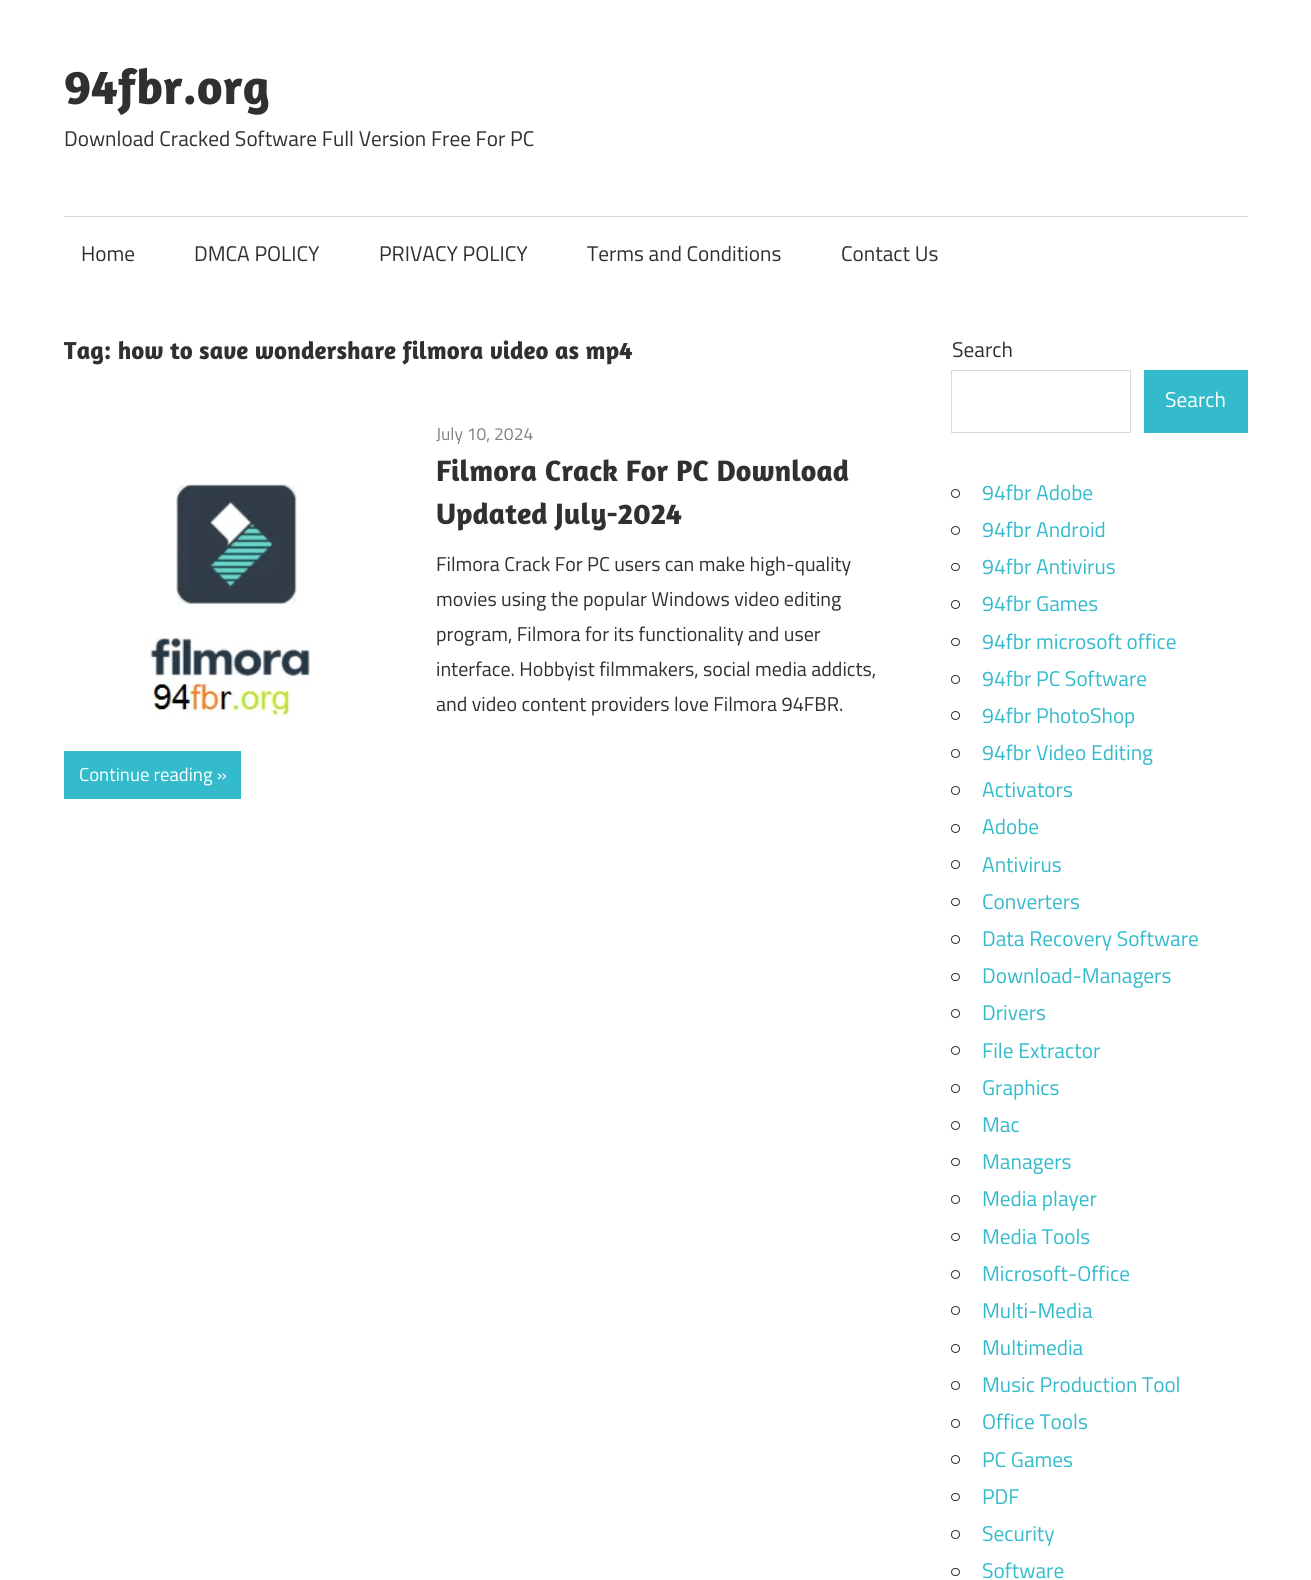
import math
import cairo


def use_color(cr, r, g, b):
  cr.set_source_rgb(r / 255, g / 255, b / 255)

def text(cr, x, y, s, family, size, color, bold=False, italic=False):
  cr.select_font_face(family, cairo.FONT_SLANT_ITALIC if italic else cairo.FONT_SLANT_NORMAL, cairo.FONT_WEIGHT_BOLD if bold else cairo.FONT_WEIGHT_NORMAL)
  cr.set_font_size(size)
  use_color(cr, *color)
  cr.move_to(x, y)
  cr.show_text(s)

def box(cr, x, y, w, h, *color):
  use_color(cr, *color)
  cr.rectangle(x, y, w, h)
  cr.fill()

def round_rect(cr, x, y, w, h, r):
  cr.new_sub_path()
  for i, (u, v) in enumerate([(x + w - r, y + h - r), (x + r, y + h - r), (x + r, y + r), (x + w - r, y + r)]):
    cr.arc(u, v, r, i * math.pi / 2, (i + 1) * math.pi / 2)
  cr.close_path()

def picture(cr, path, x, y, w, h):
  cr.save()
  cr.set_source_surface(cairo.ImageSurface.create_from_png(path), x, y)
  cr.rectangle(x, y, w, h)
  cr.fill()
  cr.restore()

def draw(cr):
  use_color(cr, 255, 255, 255)
  cr.paint()
  box(cr, 64, 216, 1184, 1, 217, 217, 217)
  picture(cr, "img_01.png", 149, 483, 162, 234)
  box(cr, 64, 751, 177, 48, 51, 187, 204)
  cr.rectangle(951.5, 370.5, 179, 62)
  use_color(cr, 217, 217, 217)
  cr.set_line_width(1)
  cr.stroke()
  box(cr, 1144, 370, 104, 63, 51, 187, 204)
  cr.arc(955.5, 493.5, 4, 0, 2 * math.pi)
  use_color(cr, 48, 48, 48)
  cr.stroke()
  cr.arc(955.5, 530.5, 4, 0, 2 * math.pi)
  cr.stroke()
  round_rect(cr, 951.5, 563.5, 8, 7, 3.5)
  cr.stroke()
  cr.arc(955.5, 604.5, 4, 0, 2 * math.pi)
  cr.stroke()
  round_rect(cr, 951.5, 638.5, 8, 7, 3.5)
  cr.stroke()
  cr.arc(955.5, 679.5, 4, 0, 2 * math.pi)
  cr.stroke()
  cr.arc(955.5, 715.5, 4, 0, 2 * math.pi)
  cr.stroke()
  cr.arc(955.5, 753.5, 4, 0, 2 * math.pi)
  cr.stroke()
  cr.arc(955.5, 790.5, 4, 0, 2 * math.pi)
  cr.stroke()
  cr.arc(955.5, 828.5, 4, 0, 2 * math.pi)
  cr.stroke()
  cr.arc(955.5, 864.5, 4, 0, 2 * math.pi)
  cr.stroke()
  round_rect(cr, 951.5, 898.5, 8, 7, 3.5)
  cr.stroke()
  cr.arc(955.5, 939.5, 4, 0, 2 * math.pi)
  cr.stroke()
  round_rect(cr, 951.5, 973.5, 8, 7, 3.5)
  cr.stroke()
  cr.arc(955.5, 1013.5, 4, 0, 2 * math.pi)
  cr.stroke()
  cr.arc(955.5, 1050.5, 4, 0, 2 * math.pi)
  cr.stroke()
  cr.arc(955.5, 1088.5, 4, 0, 2 * math.pi)
  cr.stroke()
  cr.arc(955.5, 1125.5, 4, 0, 2 * math.pi)
  cr.stroke()
  round_rect(cr, 951.5, 1158.5, 8, 7, 3.5)
  cr.stroke()
  cr.arc(955.5, 1199.5, 4, 0, 2 * math.pi)
  cr.stroke()
  round_rect(cr, 951.5, 1233.5, 8, 7, 3.5)
  cr.stroke()
  cr.arc(955.5, 1274.5, 4, 0, 2 * math.pi)
  cr.stroke()
  cr.arc(955.5, 1310.5, 4, 0, 2 * math.pi)
  cr.stroke()
  cr.arc(955.5, 1348.5, 4, 0, 2 * math.pi)
  cr.stroke()
  cr.arc(955.5, 1385.5, 4, 0, 2 * math.pi)
  cr.stroke()
  cr.arc(955.5, 1423.5, 4, 0, 2 * math.pi)
  cr.stroke()
  cr.arc(955.5, 1459.5, 4, 0, 2 * math.pi)
  cr.stroke()
  round_rect(cr, 951.5, 1493.5, 8, 7, 3.5)
  cr.stroke()
  cr.arc(955.5, 1534.5, 4, 0, 2 * math.pi)
  cr.stroke()
  round_rect(cr, 951.5, 1568.5, 8, 7, 3.5)
  cr.stroke()
  text(cr, 64, 104, "94fbr.org", "Amaranth", 50, (48, 48, 48), bold=True)
  text(cr, 64, 146, "Download Cracked Software Full Version Free For PC", "Titillium Web", 21.25, (48, 48, 48))
  text(cr, 81, 261, "Home", "Titillium Web", 21.25, (48, 48, 48))
  text(cr, 194, 261, "DMCA POLICY", "Titillium Web", 21.25, (48, 48, 48))
  text(cr, 379, 261, "PRIVACY POLICY", "Titillium Web", 21.25, (48, 48, 48))
  text(cr, 587, 261, "Terms and Conditions", "Titillium Web", 21.25, (48, 48, 48))
  text(cr, 841, 261, "Contact Us", "Titillium Web", 21.25, (48, 48, 48))
  text(cr, 64, 359, "Tag: how to save wondershare filmora video as mp4", "Amaranth", 25, (48, 48, 48), bold=True)
  text(cr, 436, 440, "July 10, 2024", "Titillium Web", 17.5, (128, 128, 128))
  text(cr, 436, 481, "Filmora Crack For PC Download", "Amaranth", 30, (48, 48, 48), bold=True)
  text(cr, 436, 524, "Updated July-2024", "Amaranth", 30, (48, 48, 48), bold=True)
  text(cr, 436, 571, "Filmora Crack For PC users can make high-quality", "Titillium Web", 20, (48, 48, 48))
  text(cr, 436, 606, "movies using the popular Windows video editing", "Titillium Web", 20, (48, 48, 48))
  text(cr, 436, 641, "program, Filmora for its functionality and user", "Titillium Web", 20, (48, 48, 48))
  text(cr, 436, 676, "interface. Hobbyist filmmakers, social media addicts,", "Titillium Web", 20, (48, 48, 48))
  text(cr, 436, 711, "and video content providers love Filmora 94FBR.", "Titillium Web", 20, (48, 48, 48))
  text(cr, 79, 781, "Continue reading »", "Titillium Web", 18.75, (255, 255, 255))
  text(cr, 952, 357, "Search", "Titillium Web", 21.25, (48, 48, 48))
  text(cr, 1165, 407, "Search", "Titillium Web", 21.25, (255, 255, 255))
  text(cr, 982, 500, "94fbr Adobe", "Titillium Web", 21.25, (51, 187, 204))
  text(cr, 982, 537, "94fbr Android", "Titillium Web", 21.25, (51, 187, 204))
  text(cr, 982, 574, "94fbr Antivirus", "Titillium Web", 21.25, (51, 187, 204))
  text(cr, 982, 611, "94fbr Games", "Titillium Web", 21.25, (51, 187, 204))
  text(cr, 982, 649, "94fbr microsoft office", "Titillium Web", 21.25, (51, 187, 204))
  text(cr, 982, 686, "94fbr PC Software", "Titillium Web", 21.25, (51, 187, 204))
  text(cr, 982, 723, "94fbr PhotoShop", "Titillium Web", 21.25, (51, 187, 204))
  text(cr, 982, 760, "94fbr Video Editing", "Titillium Web", 21.25, (51, 187, 204))
  text(cr, 982, 797, "Activators", "Titillium Web", 21.25, (51, 187, 204))
  text(cr, 982, 834, "Adobe", "Titillium Web", 21.25, (51, 187, 204))
  text(cr, 982, 872, "Antivirus", "Titillium Web", 21.25, (51, 187, 204))
  text(cr, 982, 909, "Converters", "Titillium Web", 21.25, (51, 187, 204))
  text(cr, 982, 946, "Data Recovery Software", "Titillium Web", 21.25, (51, 187, 204))
  text(cr, 982, 983, "Download-Managers", "Titillium Web", 21.25, (51, 187, 204))
  text(cr, 982, 1020, "Drivers", "Titillium Web", 21.25, (51, 187, 204))
  text(cr, 982, 1058, "File Extractor", "Titillium Web", 21.25, (51, 187, 204))
  text(cr, 982, 1095, "Graphics", "Titillium Web", 21.25, (51, 187, 204))
  text(cr, 982, 1132, "Mac", "Titillium Web", 21.25, (51, 187, 204))
  text(cr, 982, 1169, "Managers", "Titillium Web", 21.25, (51, 187, 204))
  text(cr, 982, 1206, "Media player", "Titillium Web", 21.25, (51, 187, 204))
  text(cr, 982, 1244, "Media Tools", "Titillium Web", 21.25, (51, 187, 204))
  text(cr, 982, 1281, "Microsoft-Office", "Titillium Web", 21.25, (51, 187, 204))
  text(cr, 982, 1318, "Multi-Media", "Titillium Web", 21.25, (51, 187, 204))
  text(cr, 982, 1355, "Multimedia", "Titillium Web", 21.25, (51, 187, 204))
  text(cr, 982, 1392, "Music Production Tool", "Titillium Web", 21.25, (51, 187, 204))
  text(cr, 982, 1429, "Office Tools", "Titillium Web", 21.25, (51, 187, 204))
  text(cr, 982, 1467, "PC Games", "Titillium Web", 21.25, (51, 187, 204))
  text(cr, 982, 1504, "PDF", "Titillium Web", 21.25, (51, 187, 204))
  text(cr, 982, 1541, "Security", "Titillium Web", 21.25, (51, 187, 204))
  text(cr, 982, 1578, "Software", "Titillium Web", 21.25, (51, 187, 204))


surface = cairo.ImageSurface(cairo.FORMAT_RGB24, 1311, 1580)
cr = cairo.Context(surface)
options = cairo.FontOptions()
options.set_hint_metrics(cairo.HINT_METRICS_OFF)
options.set_hint_style(cairo.HINT_STYLE_NONE)
cr.set_font_options(options)
cr.set_miter_limit(4)
draw(cr)
surface.write_to_png("out.png")
